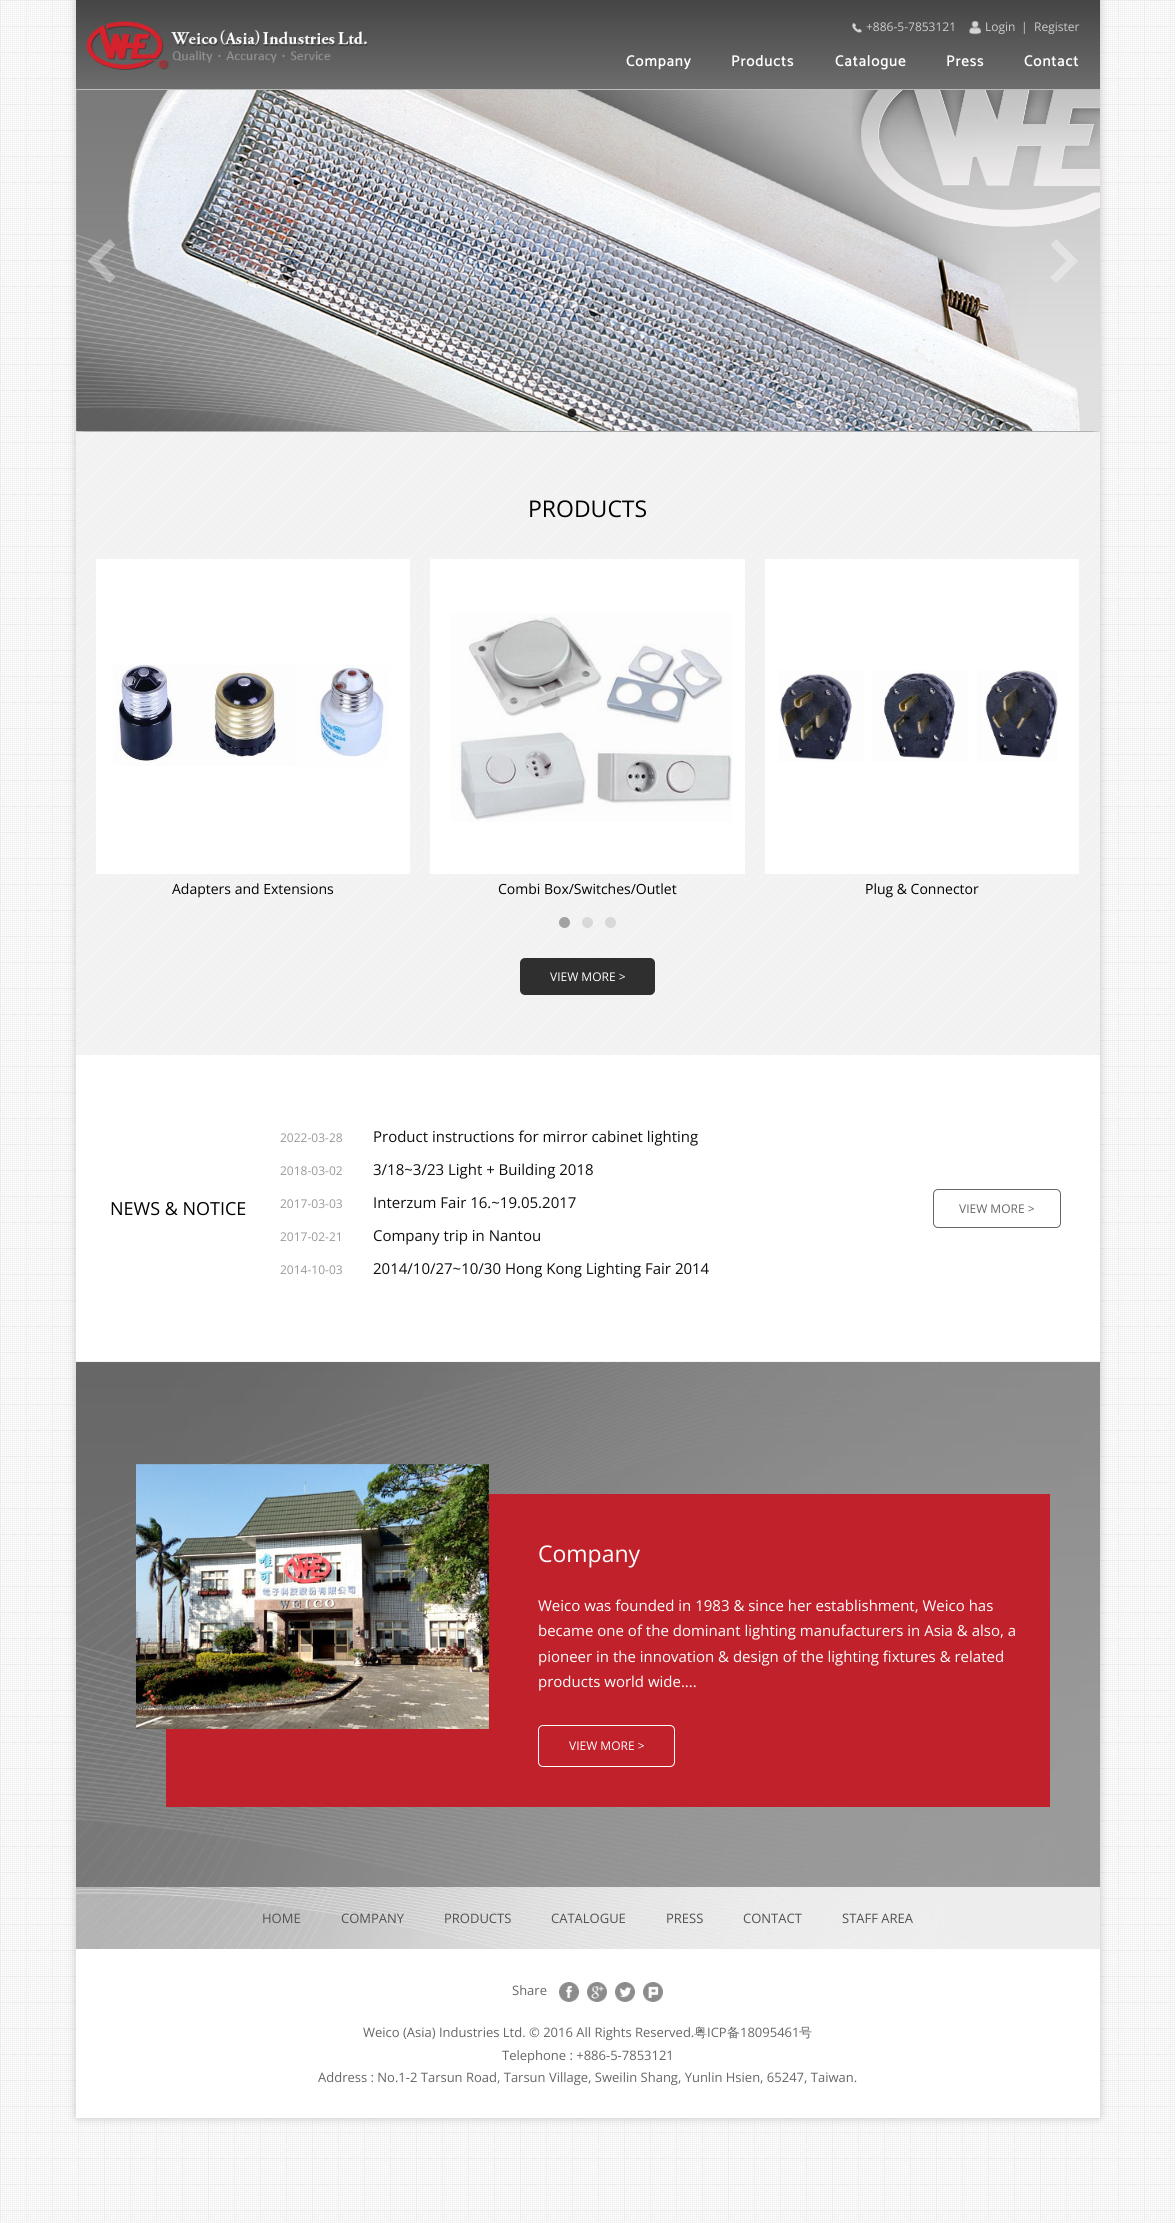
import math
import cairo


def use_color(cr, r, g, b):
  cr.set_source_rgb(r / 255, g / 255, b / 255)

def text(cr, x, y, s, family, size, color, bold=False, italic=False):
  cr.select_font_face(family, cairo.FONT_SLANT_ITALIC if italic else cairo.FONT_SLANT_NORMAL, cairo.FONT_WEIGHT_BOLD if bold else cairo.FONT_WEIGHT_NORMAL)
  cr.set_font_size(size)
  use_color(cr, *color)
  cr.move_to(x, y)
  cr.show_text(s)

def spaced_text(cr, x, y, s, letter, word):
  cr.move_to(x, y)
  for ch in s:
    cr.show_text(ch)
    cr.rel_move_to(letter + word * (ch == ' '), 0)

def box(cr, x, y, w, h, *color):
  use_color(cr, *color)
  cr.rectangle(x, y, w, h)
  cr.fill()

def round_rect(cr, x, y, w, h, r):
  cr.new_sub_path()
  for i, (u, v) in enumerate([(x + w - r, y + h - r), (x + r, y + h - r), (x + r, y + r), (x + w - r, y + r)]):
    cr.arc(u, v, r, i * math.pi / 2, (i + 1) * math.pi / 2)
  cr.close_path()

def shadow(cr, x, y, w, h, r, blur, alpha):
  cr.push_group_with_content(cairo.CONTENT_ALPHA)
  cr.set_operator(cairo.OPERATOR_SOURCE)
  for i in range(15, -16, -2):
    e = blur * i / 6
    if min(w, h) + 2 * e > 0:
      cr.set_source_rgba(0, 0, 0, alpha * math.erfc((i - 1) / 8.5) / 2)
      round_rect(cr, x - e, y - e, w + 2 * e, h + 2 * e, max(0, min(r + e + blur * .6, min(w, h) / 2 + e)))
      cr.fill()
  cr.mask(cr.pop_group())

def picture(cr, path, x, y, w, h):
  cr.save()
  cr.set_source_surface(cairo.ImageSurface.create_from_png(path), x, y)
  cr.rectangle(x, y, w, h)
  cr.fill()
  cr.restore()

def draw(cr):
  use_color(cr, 255, 255, 255)
  cr.paint()
  picture(cr, "img_01.png", 0, 0, 1175, 2223)
  use_color(cr, 0, 0, 0)
  shadow(cr, 78, 2, 1020, 2114, 0, 5, 0.3)
  gradient = cairo.LinearGradient(588, 0, 588, 89)
  gradient.add_color_stop_rgba(0, 0.271, 0.271, 0.271, 1)
  gradient.add_color_stop_rgba(1, 0.427, 0.427, 0.427, 1)
  cr.set_source(gradient)
  cr.rectangle(76, 0, 1024, 89)
  cr.fill()
  box(cr, 76, 89, 1024, 1, 188, 188, 188)
  picture(cr, "img_02.png", 86, 21, 282, 49)
  picture(cr, "img_03.png", 852, 23, 10, 10)
  picture(cr, "img_04.png", 969, 21, 13, 14)
  picture(cr, "img_05.png", 76, 90, 1024, 341)
  picture(cr, "img_06.png", 852, 90, 248, 137)
  picture(cr, "img_07.png", 88, 239, 28, 44)
  picture(cr, "img_08.png", 1050, 239, 28, 44)
  picture(cr, "img_09.png", 567, 408, 10, 10)
  picture(cr, "img_10.png", 583, 408, 10, 10)
  picture(cr, "img_11.png", 599, 408, 10, 10)
  picture(cr, "img_12.png", 76, 432, 1024, 623)
  box(cr, 96, 559, 314, 315, 255, 255, 255)
  picture(cr, "img_13.png", 113, 665, 276, 101)
  box(cr, 430, 559, 315, 315, 255, 255, 255)
  picture(cr, "img_14.png", 451, 613, 281, 209)
  box(cr, 765, 559, 314, 315, 255, 255, 255)
  picture(cr, "img_15.png", 779, 670, 279, 92)
  cr.set_source_rgba(0.6, 0.6, 0.6, 0.9)
  cr.arc(564.5, 922.5, 5.5, 0, 2 * math.pi)
  cr.fill()
  cr.set_source_rgba(0.6, 0.6, 0.6, 0.3)
  cr.arc(587.5, 922.5, 5.5, 0, 2 * math.pi)
  cr.fill()
  cr.arc(610.5, 922.5, 5.5, 0, 2 * math.pi)
  cr.fill()
  use_color(cr, 47, 47, 47)
  round_rect(cr, 520, 958, 135, 37, 5)
  cr.fill()
  box(cr, 76, 1055, 1024, 306, 255, 255, 255)
  box(cr, 76, 1361, 1024, 1, 244, 244, 244)
  round_rect(cr, 933.5, 1189.5, 127, 38, 4.5)
  use_color(cr, 102, 102, 102)
  cr.set_line_width(1)
  cr.stroke()
  picture(cr, "img_16.png", 76, 1362, 1024, 525)
  box(cr, 166, 1494, 884, 313, 193, 33, 42)
  picture(cr, "img_17.png", 136, 1464, 353, 265)
  round_rect(cr, 538.5, 1725.5, 136, 41, 4.5)
  use_color(cr, 255, 255, 255)
  cr.stroke()
  picture(cr, "img_18.png", 76, 1887, 1024, 62)
  box(cr, 76, 1949, 1024, 169, 255, 255, 255)
  picture(cr, "img_19.png", 559, 1982, 20, 20)
  picture(cr, "img_20.png", 587, 1982, 20, 20)
  picture(cr, "img_21.png", 615, 1982, 20, 20)
  picture(cr, "img_22.png", 643, 1982, 20, 20)
  text(cr, 866, 31, "+886-5-7853121", "Open Sans", 12, (204, 204, 204))
  text(cr, 985, 31, "Login", "Open Sans", 12, (204, 204, 204))
  text(cr, 1021, 31, "|", "Open Sans", 12, (204, 204, 204))
  text(cr, 1034, 31, "Register", "Open Sans", 12, (204, 204, 204))
  cr.select_font_face("Catamaran", cairo.FONT_SLANT_NORMAL, cairo.FONT_WEIGHT_BOLD)
  cr.set_font_size(15)
  use_color(cr, 255, 255, 255)
  spaced_text(cr, 626, 66, "Company", 1, 0)
  spaced_text(cr, 731, 66, "Products", 1, 0)
  spaced_text(cr, 835, 66, "Catalogue", 1, 0)
  spaced_text(cr, 946, 66, "Press", 1, 0)
  spaced_text(cr, 1024, 66, "Contact", 1, 0)
  text(cr, 528, 517, "PRODUCTS", "Open Sans", 23, (0, 0, 0))
  text(cr, 172, 894, "Adapters and Extensions", "Open Sans", 14, (0, 0, 0))
  text(cr, 498, 894, "Combi Box/Switches/Outlet", "Open Sans", 14, (0, 0, 0))
  text(cr, 865, 894, "Plug & Connector", "Open Sans", 14, (0, 0, 0))
  text(cr, 550, 981, "VIEW MORE >", "Open Sans", 12, (255, 255, 255))
  text(cr, 110, 1215, "NEWS & NOTICE", "Open Sans", 18, (0, 0, 0))
  text(cr, 280, 1142, "2022-03-28", "Open Sans", 12, (153, 153, 153))
  text(cr, 373, 1142, "Product instructions for mirror cabinet lighting", "Open Sans", 15, (16, 16, 16))
  text(cr, 280, 1175, "2018-03-02", "Open Sans", 12, (153, 153, 153))
  text(cr, 373, 1175, "3/18~3/23 Light + Building 2018", "Open Sans", 15, (16, 16, 16))
  text(cr, 280, 1208, "2017-03-03", "Open Sans", 12, (153, 153, 153))
  text(cr, 373, 1208, "Interzum Fair 16.~19.05.2017", "Open Sans", 15, (16, 16, 16))
  text(cr, 280, 1241, "2017-02-21", "Open Sans", 12, (153, 153, 153))
  text(cr, 373, 1241, "Company trip in Nantou", "Open Sans", 15, (16, 16, 16))
  text(cr, 280, 1274, "2014-10-03", "Open Sans", 12, (153, 153, 153))
  text(cr, 373, 1274, "2014/10/27~10/30 Hong Kong Lighting Fair 2014", "Open Sans", 15, (16, 16, 16))
  text(cr, 959, 1213, "VIEW MORE >", "Open Sans", 12, (102, 102, 102))
  text(cr, 538, 1562, "Company", "Open Sans", 23, (255, 255, 255))
  text(cr, 538, 1611, "Weico was founded in 1983 & since her establishment, Weico has", "Open Sans", 15, (255, 255, 255))
  text(cr, 538, 1636, "became one of the dominant lighting manufacturers in Asia & also, a", "Open Sans", 15, (255, 255, 255))
  text(cr, 538, 1662, "pioneer in the innovation & design of the lighting fixtures & related", "Open Sans", 15, (255, 255, 255))
  text(cr, 538, 1687, "products world wide....", "Open Sans", 15, (255, 255, 255))
  text(cr, 569, 1750, "VIEW MORE >", "Open Sans", 12, (255, 255, 255))
  text(cr, 262, 1923, "HOME", "Open Sans", 13, (81, 81, 81))
  text(cr, 341, 1923, "COMPANY", "Open Sans", 13, (81, 81, 81))
  text(cr, 444, 1923, "PRODUCTS", "Open Sans", 13, (81, 81, 81))
  text(cr, 551, 1923, "CATALOGUE", "Open Sans", 13, (81, 81, 81))
  text(cr, 666, 1923, "PRESS", "Open Sans", 13, (81, 81, 81))
  text(cr, 743, 1923, "CONTACT", "Open Sans", 13, (81, 81, 81))
  text(cr, 842, 1923, "STAFF AREA", "Open Sans", 13, (81, 81, 81))
  text(cr, 512, 1995, "Share", "Open Sans", 13, (102, 102, 102))
  text(cr, 363, 2037, "Weico (Asia) Industries Ltd. © 2016 All Rights Reserved.", "Open Sans", 13, (102, 102, 102))
  text(cr, 694, 2037, "粤", "WenQuanYi Zen Hei Medium", 13, (102, 102, 102))
  text(cr, 707, 2037, "ICP", "Open Sans", 13, (102, 102, 102))
  text(cr, 727, 2037, "备", "WenQuanYi Zen Hei Medium", 13, (102, 102, 102))
  text(cr, 740, 2037, "18095461", "Open Sans", 13, (102, 102, 102))
  text(cr, 799, 2037, "号", "WenQuanYi Zen Hei Medium", 13, (102, 102, 102))
  text(cr, 502, 2060, "Telephone : +886-5-7853121", "Open Sans", 13, (102, 102, 102))
  text(cr, 318, 2082, "Address : No.1-2 Tarsun Road, Tarsun Village, Sweilin Shang, Yunlin Hsien, 65247, Taiwan.", "Open Sans", 13, (102, 102, 102))


surface = cairo.ImageSurface(cairo.FORMAT_RGB24, 1175, 2223)
cr = cairo.Context(surface)
options = cairo.FontOptions()
options.set_hint_metrics(cairo.HINT_METRICS_OFF)
options.set_hint_style(cairo.HINT_STYLE_NONE)
cr.set_font_options(options)
cr.set_miter_limit(4)
draw(cr)
surface.write_to_png("out.png")
